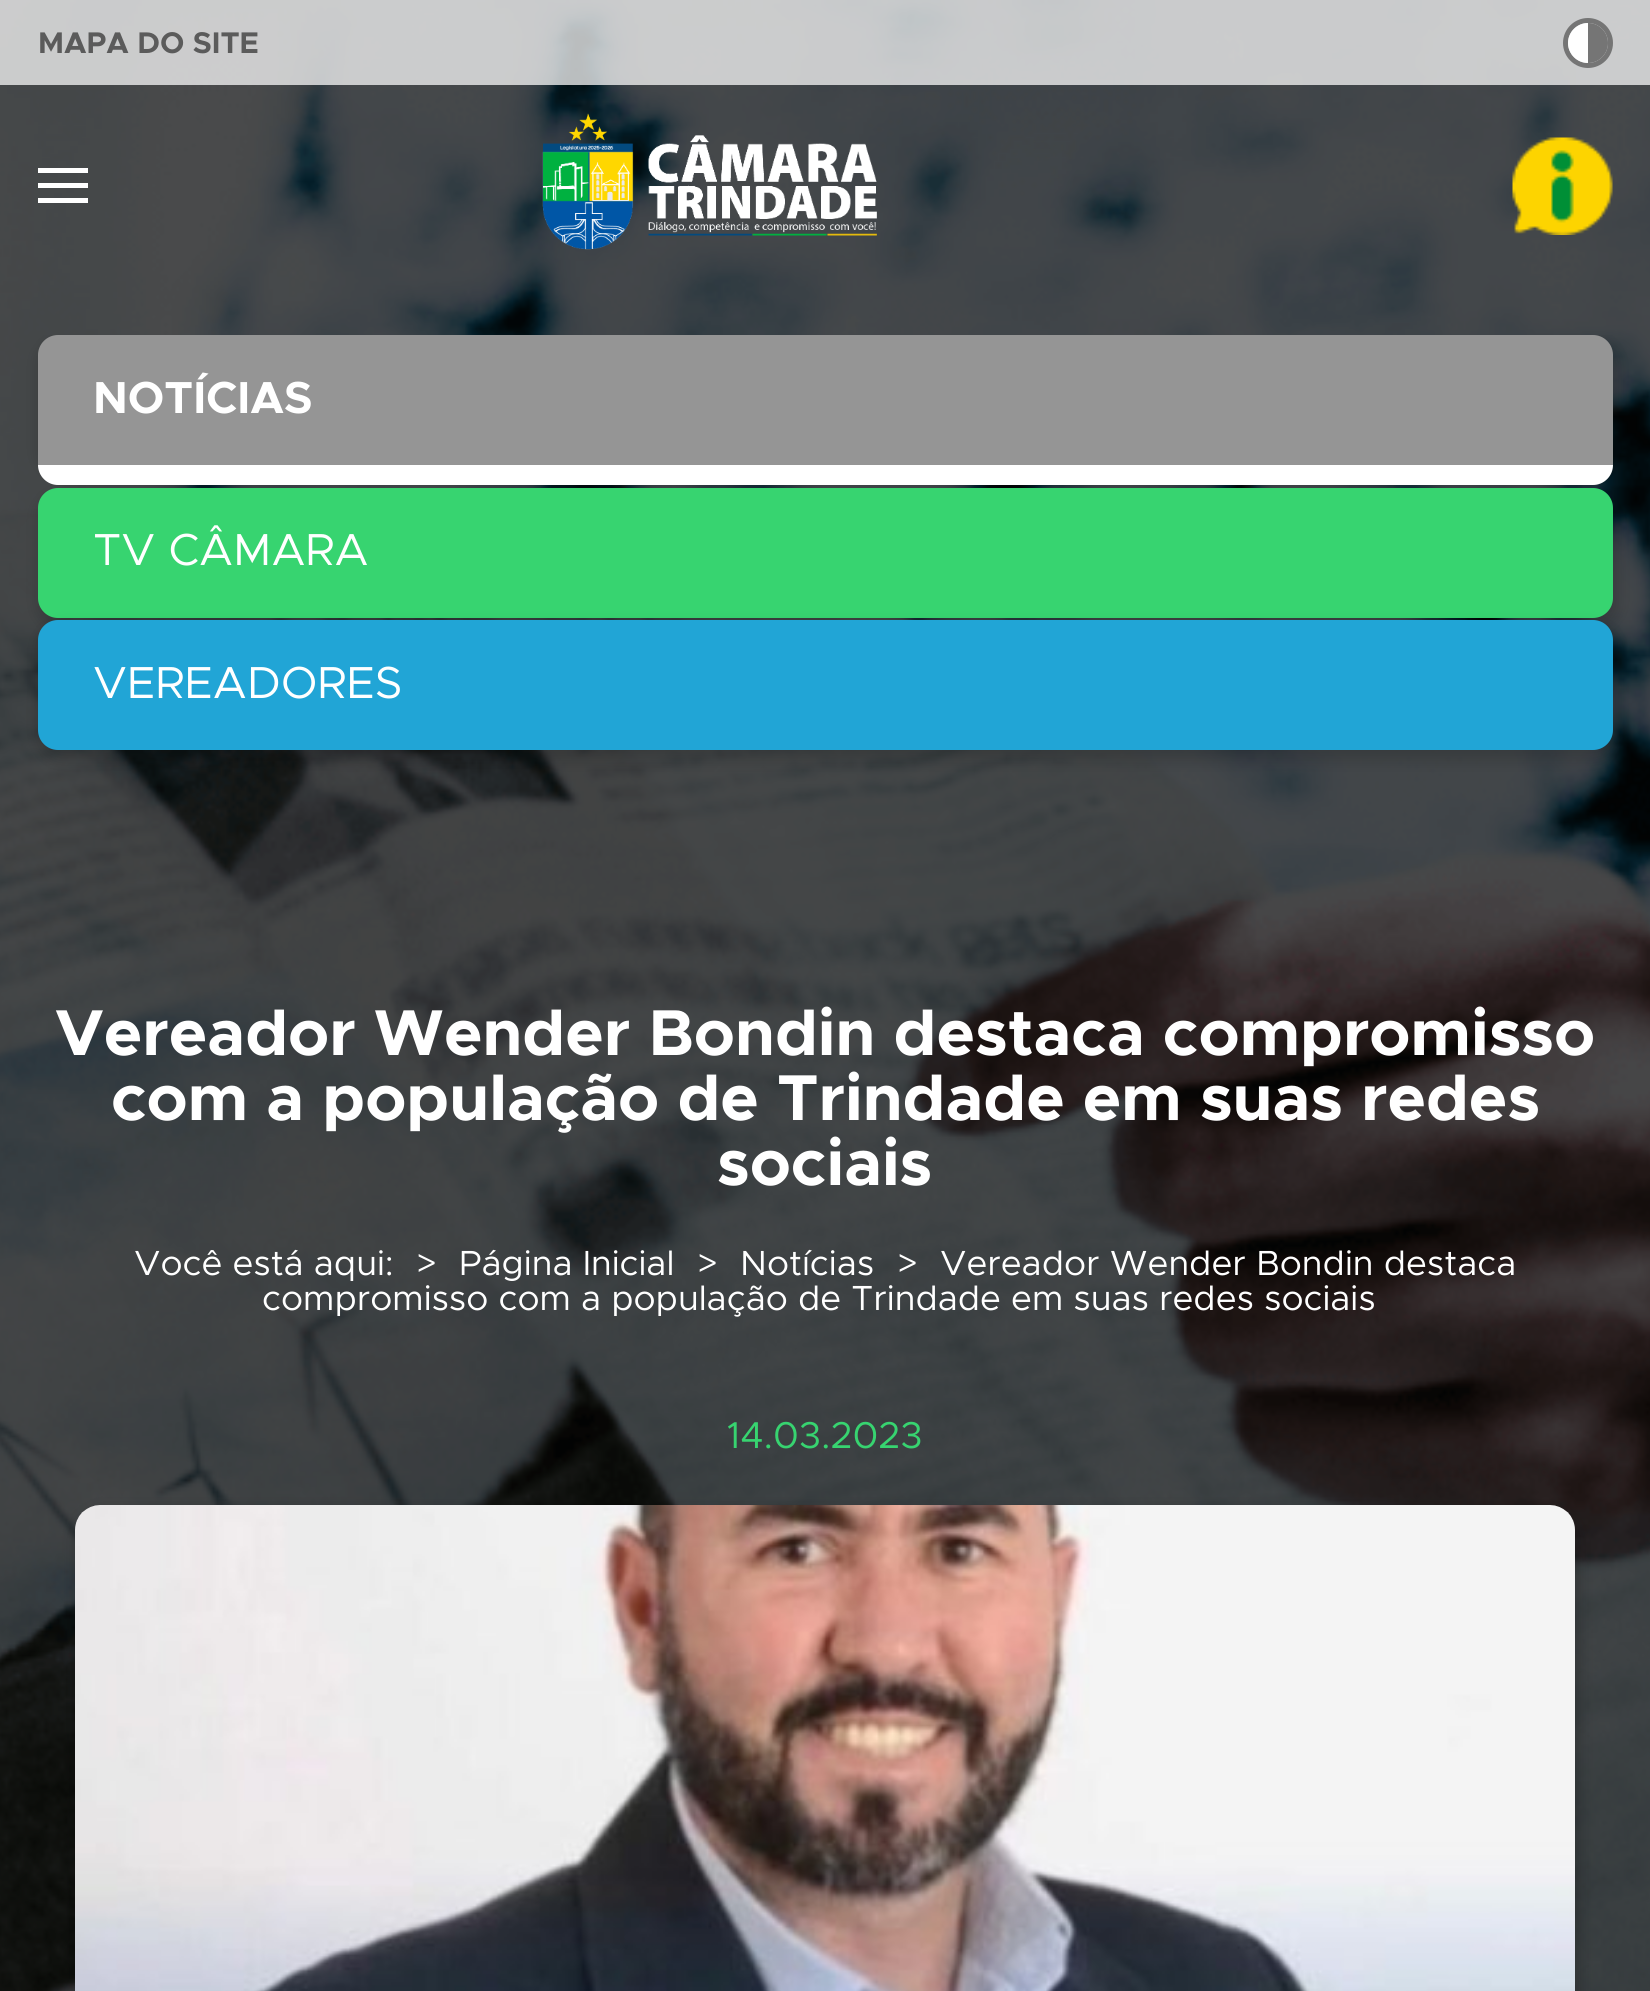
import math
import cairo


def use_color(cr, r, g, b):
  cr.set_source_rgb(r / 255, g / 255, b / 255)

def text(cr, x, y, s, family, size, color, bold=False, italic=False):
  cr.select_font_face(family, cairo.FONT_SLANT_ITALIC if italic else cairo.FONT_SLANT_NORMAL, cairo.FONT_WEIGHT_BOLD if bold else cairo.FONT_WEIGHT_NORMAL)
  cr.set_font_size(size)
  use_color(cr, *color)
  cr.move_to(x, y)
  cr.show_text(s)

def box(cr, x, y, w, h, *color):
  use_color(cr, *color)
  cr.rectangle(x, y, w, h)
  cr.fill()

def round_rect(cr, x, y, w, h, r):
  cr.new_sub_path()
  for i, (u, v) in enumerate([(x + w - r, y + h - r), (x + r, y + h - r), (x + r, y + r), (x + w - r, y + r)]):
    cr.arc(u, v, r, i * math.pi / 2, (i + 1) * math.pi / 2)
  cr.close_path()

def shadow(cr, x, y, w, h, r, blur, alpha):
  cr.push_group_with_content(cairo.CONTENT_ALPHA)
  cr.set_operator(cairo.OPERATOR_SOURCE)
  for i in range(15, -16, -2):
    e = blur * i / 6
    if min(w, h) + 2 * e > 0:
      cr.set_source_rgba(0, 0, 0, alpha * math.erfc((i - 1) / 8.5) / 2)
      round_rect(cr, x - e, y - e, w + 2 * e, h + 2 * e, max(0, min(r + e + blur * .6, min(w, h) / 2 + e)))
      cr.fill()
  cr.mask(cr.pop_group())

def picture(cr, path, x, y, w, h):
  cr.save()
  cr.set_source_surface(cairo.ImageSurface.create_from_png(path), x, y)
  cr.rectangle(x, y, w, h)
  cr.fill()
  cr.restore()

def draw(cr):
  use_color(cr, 255, 255, 255)
  cr.paint()
  picture(cr, "img_01.png", 0, 0, 1650, 1991)
  cr.set_source_rgba(0.973, 0.973, 0.973, 0.75)
  cr.rectangle(0, 0, 1650, 85)
  cr.fill()
  cr.arc(1588, 43, 22.5, 0, 2 * math.pi)
  use_color(cr, 117, 117, 117)
  cr.set_line_width(5)
  cr.stroke()
  use_color(cr, 255, 255, 255)
  cr.new_path()
  cr.move_to(1588, 23)
  cr.line_to(1588, 63)
  cr.curve_to(1577, 63, 1568, 54, 1568, 43)
  cr.curve_to(1568, 32, 1577, 23, 1588, 23)
  cr.close_path()
  cr.fill()
  use_color(cr, 117, 117, 117)
  cr.new_path()
  cr.move_to(1588, 23)
  cr.curve_to(1599, 23, 1608, 32, 1608, 43)
  cr.curve_to(1608, 54, 1599, 63, 1588, 63)
  cr.close_path()
  cr.fill()
  box(cr, 38, 183, 50, 5, 255, 255, 255)
  box(cr, 38, 168, 50, 5, 255, 255, 255)
  box(cr, 38, 198, 50, 5, 255, 255, 255)
  picture(cr, "img_02.png", 542, 113, 335, 137)
  picture(cr, "img_03.png", 1512, 137, 101, 98)
  use_color(cr, 0, 0, 0)
  shadow(cr, 38, 493, 1580, 135, 23, 7.5, 0.16)
  use_color(cr, 55, 212, 112)
  round_rect(cr, 38, 488, 1575, 130, 20)
  cr.fill()
  cr.save()
  cr.rectangle(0, 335, 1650, 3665)
  cr.clip()
  use_color(cr, 0, 0, 0)
  shadow(cr, 38, 340, 1580, 135, 23, 7.5, 0.16)
  cr.restore()
  use_color(cr, 149, 149, 149)
  cr.new_path()
  cr.move_to(58, 335)
  cr.line_to(1593, 335)
  cr.curve_to(1604, 335, 1613, 344, 1613, 355)
  cr.line_to(1613, 465)
  cr.line_to(38, 465)
  cr.line_to(38, 355)
  cr.curve_to(38, 344, 47, 335, 58, 335)
  cr.close_path()
  cr.fill()
  use_color(cr, 255, 255, 255)
  cr.new_path()
  cr.move_to(38, 465)
  cr.line_to(1613, 465)
  cr.curve_to(1613, 476, 1604, 485, 1593, 485)
  cr.line_to(58, 485)
  cr.curve_to(47, 485, 38, 476, 38, 465)
  cr.close_path()
  cr.fill()
  use_color(cr, 0, 0, 0)
  shadow(cr, 38, 625, 1580, 135, 23, 7.5, 0.16)
  use_color(cr, 33, 165, 214)
  round_rect(cr, 38, 620, 1575, 130, 20)
  cr.fill()
  use_color(cr, 0, 0, 0)
  shadow(cr, 75, 1510, 1505, 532, 28, 7.5, 0.2)
  picture(cr, "img_04.png", 75, 1505, 1500, 486)
  text(cr, 38, 53, "MAPA DO SITE", "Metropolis", 30, (91, 91, 91), bold=True)
  text(cr, 93, 413, "NOTÍCIAS", "Metropolis", 45, (255, 255, 255), bold=True)
  text(cr, 93, 565, "TV CÂMARA", "Metropolis", 45, (255, 255, 255))
  text(cr, 93, 698, "VEREADORES", "Metropolis", 45, (255, 255, 255))
  text(cr, 55, 1055, "Vereador Wender Bondin destaca compromisso", "Metropolis", 65, (255, 255, 255), bold=True)
  text(cr, 111, 1120, "com a população de Trindade em suas redes", "Metropolis", 65, (255, 255, 255), bold=True)
  text(cr, 717, 1185, "sociais", "Metropolis", 65, (255, 255, 255), bold=True)
  text(cr, 134, 1275, "Você está aqui:", "Metropolis", 35, (255, 255, 255))
  text(cr, 416, 1275, ">", "Metropolis", 35, (255, 255, 255))
  text(cr, 459, 1275, "Página Inicial", "Metropolis", 35, (255, 255, 255))
  text(cr, 697, 1275, ">", "Metropolis", 35, (255, 255, 255))
  text(cr, 740, 1275, "Notícias", "Metropolis", 35, (255, 255, 255))
  text(cr, 897, 1275, ">", "Metropolis", 35, (255, 255, 255))
  text(cr, 940, 1275, "Vereador Wender Bondin destaca", "Metropolis", 35, (255, 255, 255))
  text(cr, 262, 1310, "compromisso com a população de Trindade em suas redes sociais", "Metropolis", 35, (255, 255, 255))
  text(cr, 727, 1448, "14.03.2023", "Metropolis", 37.5, (55, 212, 112))


surface = cairo.ImageSurface(cairo.FORMAT_RGB24, 1650, 1991)
cr = cairo.Context(surface)
options = cairo.FontOptions()
options.set_hint_metrics(cairo.HINT_METRICS_OFF)
options.set_hint_style(cairo.HINT_STYLE_NONE)
cr.set_font_options(options)
cr.set_miter_limit(4)
draw(cr)
surface.write_to_png("out.png")
